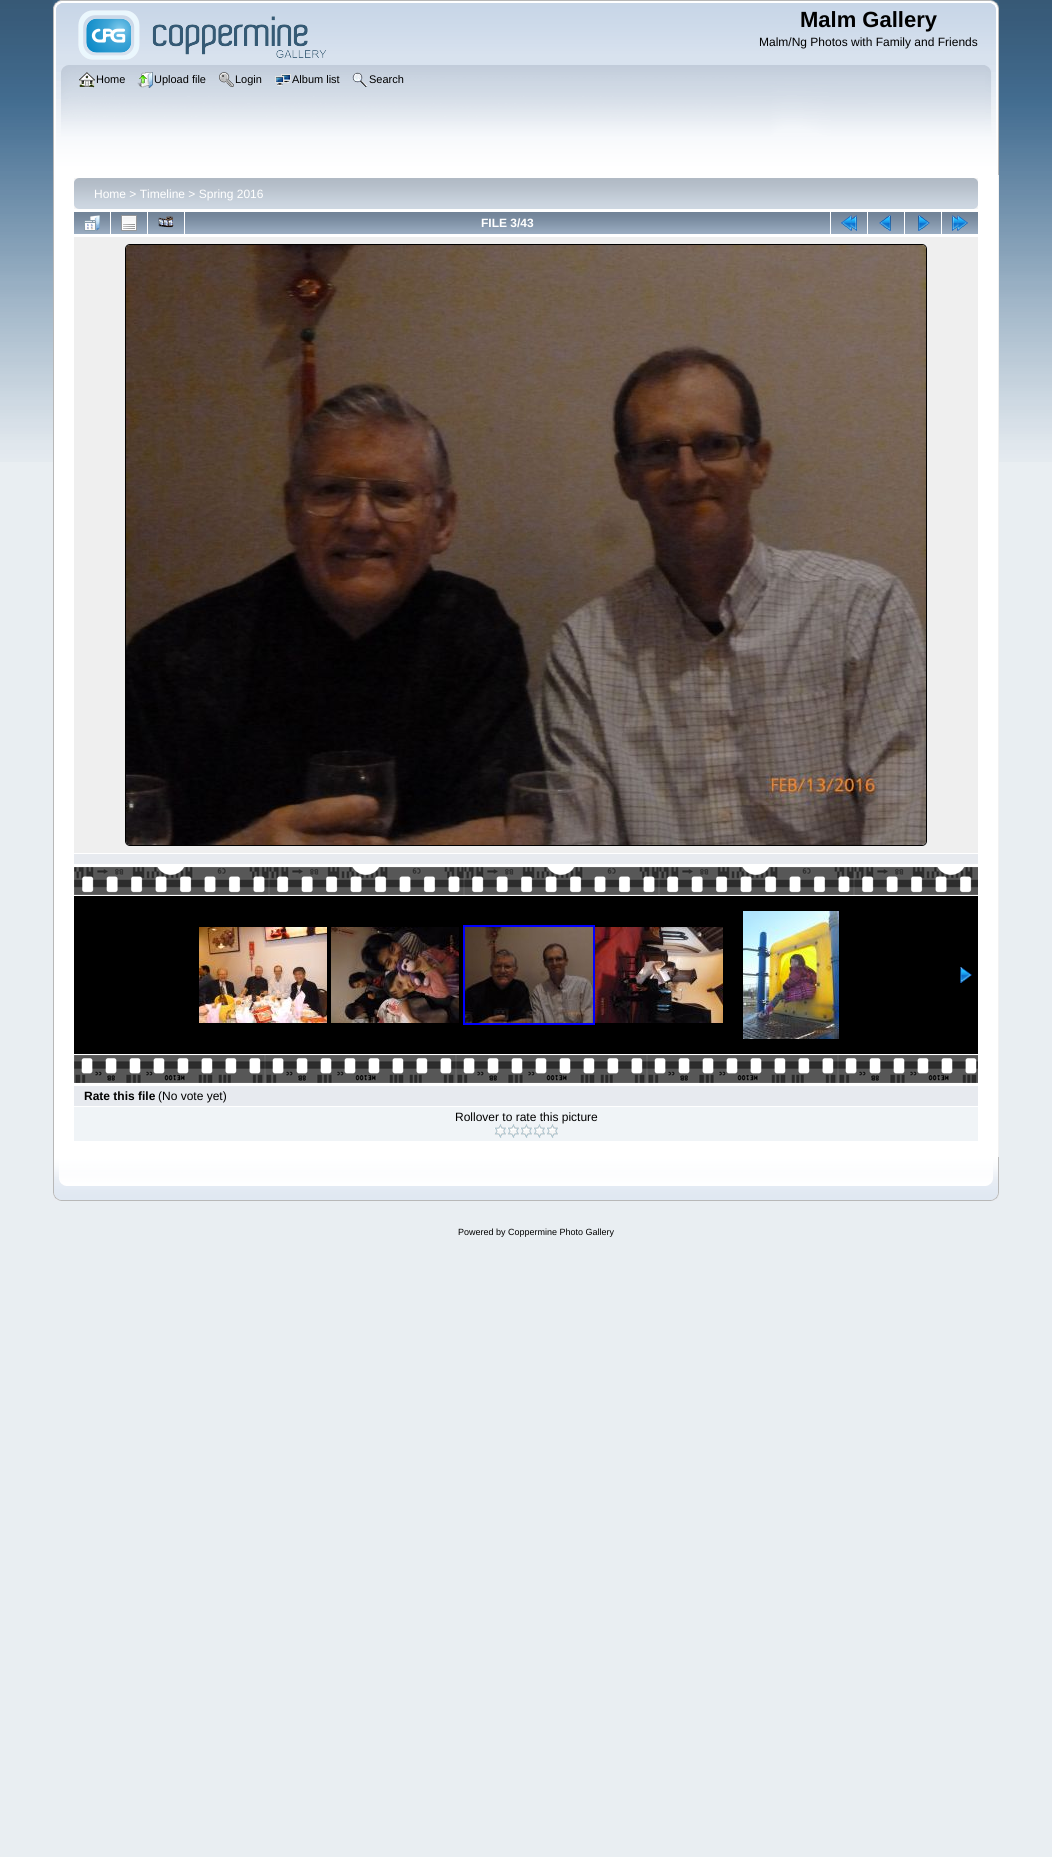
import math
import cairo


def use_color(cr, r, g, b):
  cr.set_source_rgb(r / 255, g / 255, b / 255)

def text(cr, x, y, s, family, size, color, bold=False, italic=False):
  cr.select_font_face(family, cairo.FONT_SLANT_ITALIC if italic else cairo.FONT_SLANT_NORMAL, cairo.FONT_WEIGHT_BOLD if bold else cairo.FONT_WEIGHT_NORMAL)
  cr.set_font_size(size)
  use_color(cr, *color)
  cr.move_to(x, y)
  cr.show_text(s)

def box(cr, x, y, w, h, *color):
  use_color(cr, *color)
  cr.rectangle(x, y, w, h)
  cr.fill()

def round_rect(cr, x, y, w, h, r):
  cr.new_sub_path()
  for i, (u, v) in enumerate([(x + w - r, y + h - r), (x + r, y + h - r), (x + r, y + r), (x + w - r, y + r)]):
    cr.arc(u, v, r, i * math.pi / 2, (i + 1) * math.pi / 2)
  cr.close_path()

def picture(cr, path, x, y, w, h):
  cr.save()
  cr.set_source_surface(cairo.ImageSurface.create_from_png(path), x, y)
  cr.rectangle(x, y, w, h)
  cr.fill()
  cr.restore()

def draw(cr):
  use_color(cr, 233, 238, 242)
  cr.paint()
  picture(cr, "img_01.png", 0, 0, 1052, 462)
  picture(cr, "img_02.png", 53, 0, 938, 65)
  picture(cr, "img_03.png", 991, 0, 8, 65)
  picture(cr, "img_04.png", 78, 10, 248, 50)
  picture(cr, "img_05.png", 53, 65, 932, 110)
  picture(cr, "img_06.png", 985, 65, 14, 110)
  picture(cr, "img_07.png", 79, 72, 16, 16)
  picture(cr, "img_08.png", 137, 72, 16, 16)
  picture(cr, "img_09.png", 219, 72, 15, 15)
  picture(cr, "img_10.png", 275, 74, 16, 12)
  picture(cr, "img_11.png", 352, 72, 16, 15)
  box(cr, 54, 175, 944, 982, 255, 255, 255)
  box(cr, 53, 175, 1, 982, 183, 183, 183)
  box(cr, 998, 175, 1, 982, 242, 242, 242)
  picture(cr, "img_12.png", 74, 178, 900, 31)
  picture(cr, "img_13.png", 974, 178, 4, 31)
  picture(cr, "img_14.png", 74, 212, 36, 22)
  picture(cr, "img_15.png", 84, 215, 16, 16)
  picture(cr, "img_14.png", 111, 212, 36, 22)
  picture(cr, "img_16.png", 121, 215, 16, 16)
  picture(cr, "img_14.png", 148, 212, 36, 22)
  picture(cr, "img_17.png", 158, 216, 16, 12)
  picture(cr, "img_18.png", 185, 212, 645, 22)
  picture(cr, "img_14.png", 831, 212, 36, 22)
  picture(cr, "img_19.png", 841, 215, 16, 16)
  picture(cr, "img_14.png", 868, 212, 36, 22)
  picture(cr, "img_20.png", 879, 215, 12, 16)
  picture(cr, "img_14.png", 905, 212, 36, 22)
  picture(cr, "img_21.png", 918, 215, 12, 16)
  picture(cr, "img_14.png", 942, 212, 36, 22)
  picture(cr, "img_22.png", 952, 215, 16, 16)
  box(cr, 74, 237, 904, 616, 239, 239, 239)
  round_rect(cr, 125.5, 244.5, 801, 601, 4.5)
  use_color(cr, 0, 0, 0)
  cr.set_line_width(1)
  cr.stroke()
  picture(cr, "img_23.png", 126, 245, 800, 600)
  box(cr, 74, 854, 904, 10, 231, 234, 239)
  picture(cr, "img_24.png", 74, 867, 904, 28)
  box(cr, 74, 896, 904, 158, 0, 0, 0)
  picture(cr, "img_25.png", 199, 927, 128, 96)
  picture(cr, "img_26.png", 331, 927, 128, 96)
  cr.rectangle(464, 926, 130, 98)
  use_color(cr, 0, 0, 255)
  cr.set_line_width(2)
  cr.stroke()
  picture(cr, "img_27.png", 465, 927, 128, 96)
  picture(cr, "img_28.png", 595, 927, 128, 96)
  picture(cr, "img_29.png", 743, 911, 96, 128)
  picture(cr, "img_30.png", 960, 967, 12, 16)
  picture(cr, "img_31.png", 74, 1055, 904, 28)
  box(cr, 74, 1086, 904, 20, 231, 234, 239)
  box(cr, 74, 1107, 904, 34, 240, 244, 247)
  picture(cr, "img_32.png", 494, 1124, 13, 14)
  picture(cr, "img_32.png", 507, 1124, 13, 14)
  picture(cr, "img_32.png", 520, 1124, 13, 14)
  picture(cr, "img_32.png", 533, 1124, 13, 14)
  picture(cr, "img_32.png", 546, 1124, 13, 14)
  picture(cr, "img_33.png", 53, 1157, 933, 44)
  picture(cr, "img_34.png", 986, 1157, 13, 44)
  text(cr, 800, 27, "Malm Gallery", "Liberation Sans", 22, (0, 0, 0), bold=True)
  text(cr, 759, 46, "Malm/Ng Photos with Family and Friends", "Liberation Sans", 12, (0, 0, 0))
  text(cr, 96, 83, "Home", "Liberation Sans", 11, (0, 0, 0))
  text(cr, 154, 83, "Upload file", "Liberation Sans", 11, (0, 0, 0))
  text(cr, 235, 83, "Login", "Liberation Sans", 11, (0, 0, 0))
  text(cr, 292, 83, "Album list", "Liberation Sans", 11, (0, 0, 0))
  text(cr, 369, 83, "Search", "Liberation Sans", 11, (0, 0, 0))
  text(cr, 94, 198, "Home > Timeline > Spring 2016", "Liberation Sans", 12, (255, 255, 255))
  text(cr, 481, 227, "FILE 3/43", "Liberation Sans", 12, (255, 255, 255), bold=True)
  text(cr, 84, 1100, "Rate this file", "Liberation Sans", 12, (0, 0, 0), bold=True)
  text(cr, 158, 1100, "(No vote yet)", "Liberation Sans", 12, (0, 0, 0))
  text(cr, 455, 1121, "Rollover to rate this picture", "Liberation Sans", 12, (0, 0, 0))
  text(cr, 458, 1235, "Powered by Coppermine Photo Gallery", "Liberation Sans", 9, (0, 0, 0))


surface = cairo.ImageSurface(cairo.FORMAT_RGB24, 1052, 1857)
cr = cairo.Context(surface)
options = cairo.FontOptions()
options.set_hint_metrics(cairo.HINT_METRICS_OFF)
options.set_hint_style(cairo.HINT_STYLE_NONE)
cr.set_font_options(options)
cr.set_miter_limit(4)
draw(cr)
surface.write_to_png("out.png")
